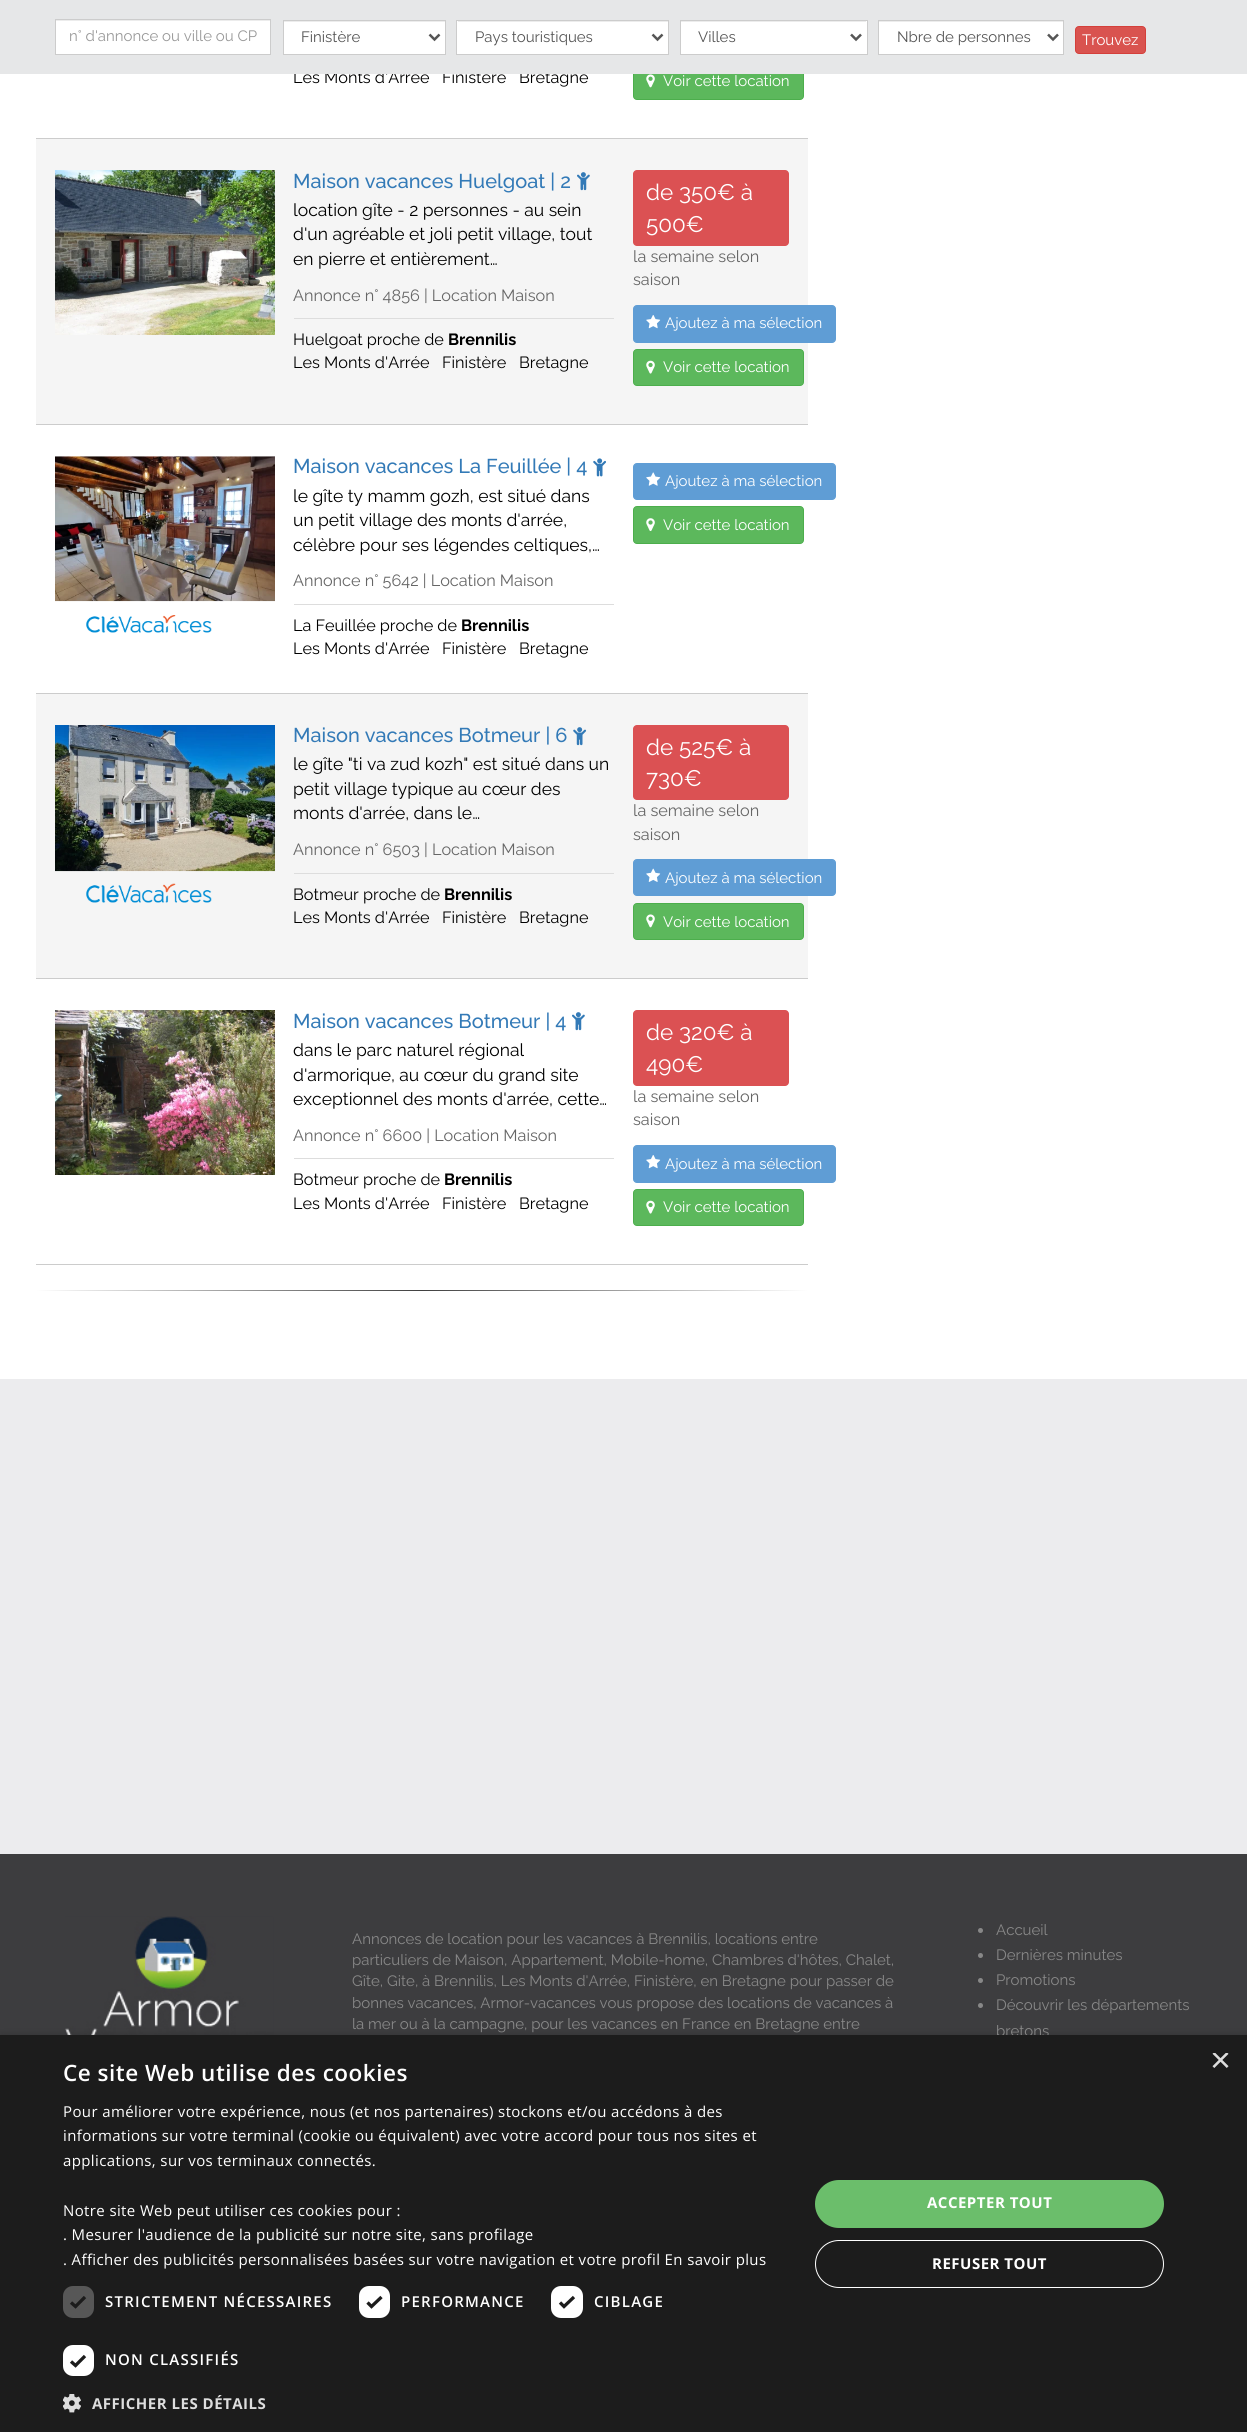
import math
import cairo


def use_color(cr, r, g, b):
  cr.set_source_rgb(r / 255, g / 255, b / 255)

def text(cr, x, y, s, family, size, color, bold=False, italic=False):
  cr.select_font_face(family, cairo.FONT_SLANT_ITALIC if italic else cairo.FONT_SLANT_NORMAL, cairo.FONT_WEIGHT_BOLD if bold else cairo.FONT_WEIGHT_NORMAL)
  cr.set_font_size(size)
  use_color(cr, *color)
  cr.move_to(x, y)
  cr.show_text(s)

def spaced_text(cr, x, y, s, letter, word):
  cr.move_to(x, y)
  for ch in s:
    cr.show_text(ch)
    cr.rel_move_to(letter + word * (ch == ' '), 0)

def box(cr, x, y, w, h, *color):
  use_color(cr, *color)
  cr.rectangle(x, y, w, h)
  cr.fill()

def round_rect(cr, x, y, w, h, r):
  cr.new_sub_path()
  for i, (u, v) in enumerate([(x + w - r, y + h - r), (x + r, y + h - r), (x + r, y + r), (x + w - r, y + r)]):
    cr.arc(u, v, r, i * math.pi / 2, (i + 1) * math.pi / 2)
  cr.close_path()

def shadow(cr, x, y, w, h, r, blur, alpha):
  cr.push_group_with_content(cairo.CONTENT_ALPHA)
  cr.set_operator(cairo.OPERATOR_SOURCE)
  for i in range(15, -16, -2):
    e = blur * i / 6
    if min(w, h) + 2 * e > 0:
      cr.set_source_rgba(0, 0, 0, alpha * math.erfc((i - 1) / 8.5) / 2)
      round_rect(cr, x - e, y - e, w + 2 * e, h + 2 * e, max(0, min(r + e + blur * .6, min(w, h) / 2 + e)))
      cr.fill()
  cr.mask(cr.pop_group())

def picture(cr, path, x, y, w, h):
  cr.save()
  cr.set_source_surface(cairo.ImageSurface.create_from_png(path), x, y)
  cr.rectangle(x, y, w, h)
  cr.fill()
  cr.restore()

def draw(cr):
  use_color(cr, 255, 255, 255)
  cr.paint()
  box(cr, 36, 138, 772, 1, 204, 204, 204)
  use_color(cr, 92, 184, 92)
  round_rect(cr, 633.5, 63.5, 170, 36, 3.5)
  cr.fill_preserve()
  use_color(cr, 76, 174, 76)
  cr.set_line_width(1)
  cr.stroke()
  picture(cr, "img_01.png", 646, 74, 9, 14)
  box(cr, 36, 139, 772, 285, 245, 245, 245)
  box(cr, 36, 424, 772, 1, 204, 204, 204)
  picture(cr, "img_02.png", 55, 170, 220, 165)
  picture(cr, "img_03.png", 577, 172, 13, 19)
  box(cr, 294, 318, 320, 1, 221, 221, 221)
  use_color(cr, 219, 81, 83)
  round_rect(cr, 633, 170, 156, 76, 4)
  cr.fill()
  use_color(cr, 95, 157, 213)
  round_rect(cr, 633.5, 305.5, 202, 37, 3.5)
  cr.fill_preserve()
  cr.stroke()
  picture(cr, "img_04.png", 646, 315, 15, 14)
  use_color(cr, 92, 184, 92)
  round_rect(cr, 633.5, 349.5, 170, 36, 3.5)
  cr.fill_preserve()
  use_color(cr, 76, 174, 76)
  cr.stroke()
  picture(cr, "img_05.png", 646, 360, 9, 14)
  box(cr, 36, 693, 772, 1, 204, 204, 204)
  picture(cr, "img_06.png", 55, 456, 220, 146)
  picture(cr, "img_07.png", 86, 615, 126, 18)
  picture(cr, "img_08.png", 593, 458, 13, 19)
  box(cr, 294, 604, 320, 1, 221, 221, 221)
  use_color(cr, 95, 157, 213)
  round_rect(cr, 633.5, 463.5, 202, 36, 3.5)
  cr.fill_preserve()
  cr.stroke()
  picture(cr, "img_09.png", 646, 472, 15, 14)
  use_color(cr, 92, 184, 92)
  round_rect(cr, 633.5, 506.5, 170, 37, 3.5)
  cr.fill_preserve()
  use_color(cr, 76, 174, 76)
  cr.stroke()
  picture(cr, "img_10.png", 646, 518, 9, 13)
  box(cr, 36, 694, 772, 284, 245, 245, 245)
  box(cr, 36, 978, 772, 1, 204, 204, 204)
  picture(cr, "img_11.png", 55, 725, 220, 147)
  picture(cr, "img_12.png", 86, 883, 126, 20)
  picture(cr, "img_13.png", 573, 727, 14, 19)
  box(cr, 294, 873, 320, 1, 221, 221, 221)
  use_color(cr, 219, 81, 83)
  round_rect(cr, 633, 725, 156, 75, 4)
  cr.fill()
  use_color(cr, 95, 157, 213)
  round_rect(cr, 633.5, 859.5, 202, 36, 3.5)
  cr.fill_preserve()
  cr.stroke()
  picture(cr, "img_14.png", 646, 868, 15, 14)
  use_color(cr, 92, 184, 92)
  round_rect(cr, 633.5, 903.5, 170, 36, 3.5)
  cr.fill_preserve()
  use_color(cr, 76, 174, 76)
  cr.stroke()
  picture(cr, "img_01.png", 646, 914, 9, 14)
  box(cr, 36, 1264, 772, 1, 204, 204, 204)
  picture(cr, "img_15.png", 55, 1010, 220, 165)
  picture(cr, "img_16.png", 572, 1012, 13, 19)
  box(cr, 294, 1158, 320, 1, 221, 221, 221)
  use_color(cr, 219, 81, 83)
  round_rect(cr, 633, 1010, 156, 76, 4)
  cr.fill()
  use_color(cr, 95, 157, 213)
  round_rect(cr, 633.5, 1145.5, 202, 37, 3.5)
  cr.fill_preserve()
  cr.stroke()
  picture(cr, "img_04.png", 646, 1155, 15, 14)
  use_color(cr, 92, 184, 92)
  round_rect(cr, 633.5, 1189.5, 170, 36, 3.5)
  cr.fill_preserve()
  use_color(cr, 76, 174, 76)
  cr.stroke()
  picture(cr, "img_05.png", 646, 1200, 9, 14)
  gradient = cairo.LinearGradient(36, 1291, 808, 1291)
  gradient.add_color_stop_rgba(0, 1, 1, 1, 1)
  gradient.add_color_stop_rgba(0.5, 0.251, 0.251, 0.251, 1)
  gradient.add_color_stop_rgba(1, 1, 1, 1, 1)
  cr.set_source(gradient)
  cr.rectangle(36, 1290, 772, 1)
  cr.fill()
  box(cr, 0, 1379, 1247, 475, 236, 236, 238)
  box(cr, 0, 1854, 1247, 181, 61, 61, 63)
  picture(cr, "img_17.png", 65, 1916, 209, 119)
  use_color(cr, 136, 136, 136)
  cr.arc(980.5, 1930.5, 2.5, 0, 2 * math.pi)
  cr.fill()
  cr.arc(980.5, 1955.5, 2.5, 0, 2 * math.pi)
  cr.fill()
  cr.arc(980.5, 1980.5, 2.5, 0, 2 * math.pi)
  cr.fill()
  cr.arc(980.5, 2005.5, 2.5, 0, 2 * math.pi)
  cr.fill()
  use_color(cr, 0, 0, 0)
  shadow(cr, 1, 2038, 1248, 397, 0, 5, 0.35)
  text(cr, 293, 83, "Les Monts d'Arrée", "Raleway", 16.25, (0, 0, 0))
  text(cr, 442, 83, "Finistère", "Raleway", 16.25, (0, 0, 0))
  text(cr, 519, 83, "Bretagne", "Raleway", 16.25, (0, 0, 0))
  box(cr, 0, 0, 1247, 74, 230, 231, 232)
  use_color(cr, 217, 83, 79)
  round_rect(cr, 1075.5, 26.5, 70, 27, 3.5)
  cr.fill_preserve()
  use_color(cr, 212, 63, 58)
  cr.stroke()
  text(cr, 1082, 45, "Trouvez", "Raleway", 15, (255, 255, 255))
  box(cr, 879, 21, 184, 1, 236, 236, 236)
  box(cr, 879, 22, 184, 32, 255, 255, 255)
  cr.rectangle(878.5, 20.5, 185, 34)
  use_color(cr, 204, 204, 204)
  cr.stroke()
  text(cr, 897, 42, "Nbre de personnes", "Raleway", 15, (85, 85, 85))
  cr.new_path()
  cr.move_to(1048, 34.5)
  cr.line_to(1053, 39.5)
  cr.line_to(1058, 34.5)
  cr.set_line_width(2.5)
  cr.stroke()
  box(cr, 681, 21, 186, 33, 255, 255, 255)
  box(cr, 681, 21, 185, 1, 236, 236, 236)
  cr.rectangle(680.5, 20.5, 187, 34)
  use_color(cr, 204, 204, 204)
  cr.set_line_width(1)
  cr.stroke()
  text(cr, 698, 42, "Villes", "Raleway", 15, (85, 85, 85))
  cr.new_path()
  cr.move_to(851, 34.5)
  cr.line_to(856, 39.5)
  cr.line_to(861, 34.5)
  cr.set_line_width(2.5)
  cr.stroke()
  box(cr, 457, 21, 211, 33, 255, 255, 255)
  box(cr, 458, 21, 210, 1, 236, 236, 236)
  cr.rectangle(456.5, 20.5, 212, 34)
  use_color(cr, 204, 204, 204)
  cr.set_line_width(1)
  cr.stroke()
  text(cr, 475, 42, "Pays touristiques", "Raleway", 15, (85, 85, 85))
  cr.new_path()
  cr.move_to(652.5, 34.5)
  cr.line_to(657.5, 39.5)
  cr.line_to(662.5, 34.5)
  cr.set_line_width(2.5)
  cr.stroke()
  box(cr, 284, 21, 161, 1, 236, 236, 236)
  box(cr, 284, 22, 161, 32, 255, 255, 255)
  cr.rectangle(283.5, 20.5, 162, 34)
  use_color(cr, 204, 204, 204)
  cr.set_line_width(1)
  cr.stroke()
  text(cr, 301, 42, "Finistère", "Raleway", 15, (85, 85, 85))
  cr.new_path()
  cr.move_to(429.5, 34.5)
  cr.line_to(434.5, 39.5)
  cr.line_to(439.5, 34.5)
  cr.set_line_width(2.5)
  cr.stroke()
  box(cr, 56, 20, 214, 1, 236, 236, 236)
  box(cr, 56, 21, 214, 33, 255, 255, 255)
  cr.rectangle(55.5, 19.5, 215, 35)
  use_color(cr, 204, 204, 204)
  cr.set_line_width(1)
  cr.stroke()
  text(cr, 69, 41, "n° d'annonce ou ville ou CP", "Raleway", 15, (153, 153, 153))
  text(cr, 663, 86, "Voir cette location", "Raleway", 15, (255, 255, 255))
  text(cr, 293, 188, "Maison vacances Huelgoat | 2", "Raleway Medium", 20, (51, 122, 183))
  text(cr, 293, 216, "location gîte - 2 personnes - au sein", "Raleway", 17.5, (0, 0, 0))
  text(cr, 293, 240, "d'un agréable et joli petit village, tout", "Raleway", 17.5, (0, 0, 0))
  text(cr, 293, 265, "en pierre et entièrement…", "Raleway", 17.5, (0, 0, 0))
  text(cr, 293, 301, "Annonce n° 4856 | Location Maison", "Raleway", 16.25, (102, 102, 102))
  text(cr, 293, 345, "Huelgoat proche de", "Raleway", 16.25, (0, 0, 0))
  text(cr, 448, 345, "Brennilis", "Raleway", 16.25, (0, 0, 0), bold=True)
  text(cr, 293, 368, "Les Monts d'Arrée", "Raleway", 16.25, (0, 0, 0))
  text(cr, 442, 368, "Finistère", "Raleway", 16.25, (0, 0, 0))
  text(cr, 519, 368, "Bretagne", "Raleway", 16.25, (0, 0, 0))
  text(cr, 646, 200, "de 350€ à", "Raleway", 22.5, (255, 255, 255))
  text(cr, 646, 232, "500€", "Raleway", 22.5, (255, 255, 255))
  text(cr, 633, 262, "la semaine selon", "Raleway", 16.25, (102, 102, 102))
  text(cr, 633, 285, "saison", "Raleway", 16.25, (102, 102, 102))
  text(cr, 665, 328, "Ajoutez à ma sélection", "Raleway", 15, (255, 255, 255))
  text(cr, 663, 372, "Voir cette location", "Raleway", 15, (255, 255, 255))
  text(cr, 293, 473, "Maison vacances La Feuillée | 4", "Raleway Medium", 20, (51, 122, 183))
  text(cr, 293, 502, "le gîte ty mamm gozh, est situé dans", "Raleway", 17.5, (0, 0, 0))
  text(cr, 293, 526, "un petit village des monts d'arrée,", "Raleway", 17.5, (0, 0, 0))
  text(cr, 293, 551, "célèbre pour ses légendes celtiques,…", "Raleway", 17.5, (0, 0, 0))
  text(cr, 293, 586, "Annonce n° 5642 | Location Maison", "Raleway", 16.25, (102, 102, 102))
  text(cr, 293, 631, "La Feuillée proche de", "Raleway", 16.25, (0, 0, 0))
  text(cr, 461, 631, "Brennilis", "Raleway", 16.25, (0, 0, 0), bold=True)
  text(cr, 293, 654, "Les Monts d'Arrée", "Raleway", 16.25, (0, 0, 0))
  text(cr, 442, 654, "Finistère", "Raleway", 16.25, (0, 0, 0))
  text(cr, 519, 654, "Bretagne", "Raleway", 16.25, (0, 0, 0))
  text(cr, 665, 486, "Ajoutez à ma sélection", "Raleway", 15, (255, 255, 255))
  text(cr, 663, 530, "Voir cette location", "Raleway", 15, (255, 255, 255))
  text(cr, 293, 742, "Maison vacances Botmeur | 6", "Raleway Medium", 20, (51, 122, 183))
  text(cr, 293, 770, "le gîte \"ti va zud kozh\" est situé dans un", "Raleway", 17.5, (0, 0, 0))
  text(cr, 293, 795, "petit village typique au cœur des", "Raleway", 17.5, (0, 0, 0))
  text(cr, 293, 819, "monts d'arrée, dans le…", "Raleway", 17.5, (0, 0, 0))
  text(cr, 293, 855, "Annonce n° 6503 | Location Maison", "Raleway", 16.25, (102, 102, 102))
  text(cr, 293, 900, "Botmeur proche de", "Raleway", 16.25, (0, 0, 0))
  text(cr, 444, 900, "Brennilis", "Raleway", 16.25, (0, 0, 0), bold=True)
  text(cr, 293, 923, "Les Monts d'Arrée", "Raleway", 16.25, (0, 0, 0))
  text(cr, 442, 923, "Finistère", "Raleway", 16.25, (0, 0, 0))
  text(cr, 519, 923, "Bretagne", "Raleway", 16.25, (0, 0, 0))
  text(cr, 646, 755, "de 525€ à", "Raleway", 22.5, (255, 255, 255))
  text(cr, 646, 786, "730€", "Raleway", 22.5, (255, 255, 255))
  text(cr, 633, 816, "la semaine selon", "Raleway", 16.25, (102, 102, 102))
  text(cr, 633, 840, "saison", "Raleway", 16.25, (102, 102, 102))
  text(cr, 665, 883, "Ajoutez à ma sélection", "Raleway", 15, (255, 255, 255))
  text(cr, 663, 927, "Voir cette location", "Raleway", 15, (255, 255, 255))
  text(cr, 293, 1028, "Maison vacances Botmeur | 4", "Raleway Medium", 20, (51, 122, 183))
  text(cr, 293, 1056, "dans le parc naturel régional", "Raleway", 17.5, (0, 0, 0))
  text(cr, 293, 1081, "d'armorique, au cœur du grand site", "Raleway", 17.5, (0, 0, 0))
  text(cr, 293, 1105, "exceptionnel des monts d'arrée, cette…", "Raleway", 17.5, (0, 0, 0))
  text(cr, 293, 1141, "Annonce n° 6600 | Location Maison", "Raleway", 16.25, (102, 102, 102))
  text(cr, 293, 1185, "Botmeur proche de", "Raleway", 16.25, (0, 0, 0))
  text(cr, 444, 1185, "Brennilis", "Raleway", 16.25, (0, 0, 0), bold=True)
  text(cr, 293, 1209, "Les Monts d'Arrée", "Raleway", 16.25, (0, 0, 0))
  text(cr, 442, 1209, "Finistère", "Raleway", 16.25, (0, 0, 0))
  text(cr, 519, 1209, "Bretagne", "Raleway", 16.25, (0, 0, 0))
  text(cr, 646, 1040, "de 320€ à", "Raleway", 22.5, (255, 255, 255))
  text(cr, 646, 1072, "490€", "Raleway", 22.5, (255, 255, 255))
  text(cr, 633, 1102, "la semaine selon", "Raleway", 16.25, (102, 102, 102))
  text(cr, 633, 1125, "saison", "Raleway", 16.25, (102, 102, 102))
  text(cr, 665, 1169, "Ajoutez à ma sélection", "Raleway", 15, (255, 255, 255))
  text(cr, 663, 1212, "Voir cette location", "Raleway", 15, (255, 255, 255))
  text(cr, 352, 1944, "Annonces de location pour les vacances à Brennilis, locations entre", "Raleway", 15, (136, 136, 136))
  text(cr, 352, 1965, "particuliers de Maison, Appartement, Mobile-home, Chambres d'hôtes, Chalet,", "Raleway", 15, (136, 136, 136))
  text(cr, 352, 1986, "Gîte, Gite, à Brennilis, Les Monts d'Arrée, Finistère, en Bretagne pour passer de", "Raleway", 15, (136, 136, 136))
  text(cr, 352, 2008, "bonnes vacances, Armor-vacances vous propose des locations de vacances à", "Raleway", 15, (136, 136, 136))
  text(cr, 352, 2029, "la mer ou à la campagne, pour les vacances en France en Bretagne entre", "Raleway", 15, (136, 136, 136))
  text(cr, 996, 1935, "Accueil", "Raleway", 15, (136, 136, 136))
  text(cr, 996, 1960, "Dernières minutes", "Raleway", 15, (136, 136, 136))
  text(cr, 996, 1985, "Promotions", "Raleway", 15, (136, 136, 136))
  text(cr, 996, 2010, "Découvrir les départements", "Raleway", 15, (136, 136, 136))
  text(cr, 996, 2036, "bretons", "Raleway", 15, (136, 136, 136))
  box(cr, 0, 2035, 1247, 397, 28, 28, 28)
  cr.save()
  cr.rectangle(1210, 2053, 19, 18)
  cr.clip()
  text(cr, 1210, 2072, "×", "Liberation Sans", 36, (221, 221, 221))
  cr.restore()
  cr.select_font_face("Open Sans SemiBold")
  cr.set_font_size(22.5)
  use_color(cr, 255, 255, 255)
  spaced_text(cr, 63, 2081, "Ce site Web utilise des cookies", 0.5, 0)
  cr.select_font_face("Open Sans")
  cr.set_font_size(15)
  spaced_text(cr, 63, 2117, "Pour améliorer votre expérience, nous (et nos partenaires) stockons et/ou accédons à des", 0.38, 0)
  spaced_text(cr, 63, 2141, "informations sur votre terminal (cookie ou équivalent) avec votre accord pour tous nos sites et", 0.38, 0)
  spaced_text(cr, 63, 2166, "applications, sur vos terminaux connectés.", 0.38, 0)
  spaced_text(cr, 63, 2216, "Notre site Web peut utiliser ces cookies pour :", 0.38, 0)
  spaced_text(cr, 63, 2240, ". Mesurer l'audience de la publicité sur notre site, sans profilage", 0.38, 0)
  spaced_text(cr, 63, 2265, ". Afficher des publicités personnalisées basées sur votre navigation et votre profil En savoir plus", 0.38, 0)
  use_color(cr, 87, 87, 87)
  round_rect(cr, 63, 2286, 31, 32, 10)
  cr.fill()
  cr.new_path()
  cr.move_to(71, 2302.5)
  cr.line_to(75.5, 2306.5)
  cr.line_to(85, 2297)
  use_color(cr, 28, 28, 28)
  cr.set_line_width(3.3)
  cr.stroke()
  cr.select_font_face("Open Sans SemiBold")
  use_color(cr, 255, 255, 255)
  spaced_text(cr, 105, 2307, "STRICTEMENT NÉCESSAIRES", 1.25, 0)
  round_rect(cr, 360.5, 2287.5, 28, 29, 8.5)
  cr.fill_preserve()
  cr.set_line_width(3)
  cr.stroke()
  cr.new_path()
  cr.move_to(367.5, 2302.5)
  cr.line_to(371.5, 2306.5)
  cr.line_to(381.5, 2297)
  use_color(cr, 28, 28, 28)
  cr.set_line_width(3.3)
  cr.stroke()
  use_color(cr, 255, 255, 255)
  spaced_text(cr, 401, 2307, "PERFORMANCE", 1.25, 0)
  round_rect(cr, 552.5, 2287.5, 29, 29, 8.5)
  cr.fill_preserve()
  cr.set_line_width(3)
  cr.stroke()
  cr.new_path()
  cr.move_to(560, 2302.5)
  cr.line_to(564, 2306.5)
  cr.line_to(574, 2297)
  use_color(cr, 28, 28, 28)
  cr.set_line_width(3.3)
  cr.stroke()
  use_color(cr, 255, 255, 255)
  spaced_text(cr, 594, 2307, "CIBLAGE", 1.25, 0)
  round_rect(cr, 64.5, 2346.5, 28, 28, 8.5)
  cr.fill_preserve()
  cr.set_line_width(3)
  cr.stroke()
  cr.new_path()
  cr.move_to(71, 2361.5)
  cr.line_to(75.5, 2365.5)
  cr.line_to(85, 2356)
  use_color(cr, 28, 28, 28)
  cr.set_line_width(3.3)
  cr.stroke()
  use_color(cr, 255, 255, 255)
  spaced_text(cr, 105, 2365, "NON CLASSIFIÉS", 1.25, 0)
  picture(cr, "img_18.png", 63, 2394, 18, 19)
  cr.select_font_face("Open Sans", cairo.FONT_SLANT_NORMAL, cairo.FONT_WEIGHT_BOLD)
  use_color(cr, 221, 221, 221)
  spaced_text(cr, 92, 2409, "AFFICHER LES DÉTAILS", 0.5, 0)
  use_color(cr, 107, 190, 107)
  round_rect(cr, 815, 2180, 349, 48, 24)
  cr.fill()
  use_color(cr, 255, 255, 255)
  spaced_text(cr, 927, 2208, "ACCEPTER TOUT", 0.5, 0)
  round_rect(cr, 815.5, 2240.5, 348, 47, 23.5)
  cr.set_line_width(1)
  cr.stroke()
  spaced_text(cr, 932, 2269, "REFUSER TOUT", 0.5, 0)


surface = cairo.ImageSurface(cairo.FORMAT_RGB24, 1247, 2432)
cr = cairo.Context(surface)
options = cairo.FontOptions()
options.set_hint_metrics(cairo.HINT_METRICS_OFF)
options.set_hint_style(cairo.HINT_STYLE_NONE)
cr.set_font_options(options)
cr.set_miter_limit(4)
draw(cr)
surface.write_to_png("out.png")
